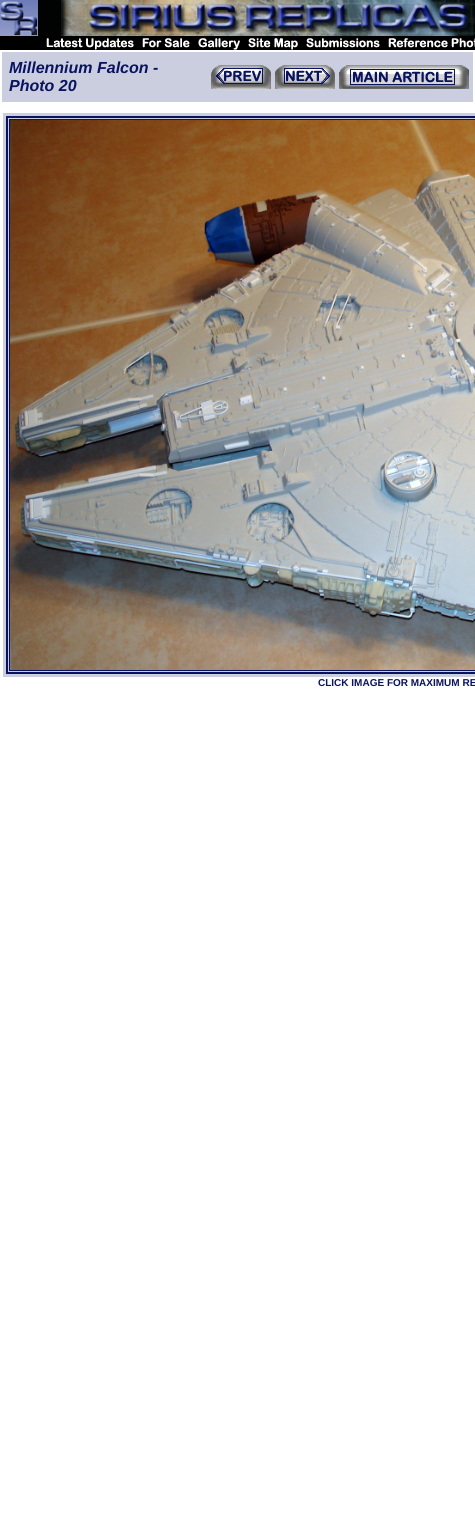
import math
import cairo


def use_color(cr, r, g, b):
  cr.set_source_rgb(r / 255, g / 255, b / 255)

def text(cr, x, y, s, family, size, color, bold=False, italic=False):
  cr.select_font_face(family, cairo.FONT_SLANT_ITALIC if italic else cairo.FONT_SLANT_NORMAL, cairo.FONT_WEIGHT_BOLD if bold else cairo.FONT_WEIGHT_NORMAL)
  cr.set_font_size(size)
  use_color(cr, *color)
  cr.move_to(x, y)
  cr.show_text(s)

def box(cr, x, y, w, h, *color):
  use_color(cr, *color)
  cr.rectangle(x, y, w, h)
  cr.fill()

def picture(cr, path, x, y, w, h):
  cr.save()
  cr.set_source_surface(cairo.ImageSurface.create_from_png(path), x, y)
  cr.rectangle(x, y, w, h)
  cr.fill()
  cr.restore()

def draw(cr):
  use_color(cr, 255, 255, 255)
  cr.paint()
  box(cr, 38, 0, 23, 36, 1, 2, 2)
  picture(cr, "img_01.png", 0, 0, 38, 36)
  picture(cr, "img_02.png", 61, 0, 414, 36)
  box(cr, 0, 36, 475, 14, 0, 0, 0)
  picture(cr, "img_03.png", 46, 38, 88, 12)
  picture(cr, "img_04.png", 142, 38, 48, 10)
  picture(cr, "img_05.png", 198, 38, 42, 12)
  picture(cr, "img_06.png", 248, 38, 50, 12)
  picture(cr, "img_07.png", 306, 38, 74, 10)
  picture(cr, "img_08.png", 388, 38, 87, 10)
  box(cr, 2, 52, 471, 50, 202, 206, 222)
  picture(cr, "img_09.png", 211, 65, 60, 24)
  picture(cr, "img_10.png", 275, 65, 60, 24)
  picture(cr, "img_11.png", 339, 65, 130, 24)
  use_color(cr, 9, 19, 96)
  cr.rectangle(4.5, 114.5, 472, 561)
  cr.fill_preserve()
  use_color(cr, 202, 206, 222)
  cr.set_line_width(3)
  cr.stroke()
  cr.rectangle(8.5, 118.5, 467, 553)
  cr.set_line_width(1)
  cr.stroke()
  picture(cr, "img_12.png", 10, 120, 465, 550)
  text(cr, 9, 73, "Millennium Falcon -", "Liberation Sans", 16, (9, 19, 96), bold=True, italic=True)
  text(cr, 9, 91, "Photo 20", "Liberation Sans", 16, (9, 19, 96), bold=True, italic=True)
  text(cr, 318, 686, "CLICK IMAGE FOR MAXIMUM RE", "Liberation Sans", 10, (9, 19, 96), bold=True)


surface = cairo.ImageSurface(cairo.FORMAT_RGB24, 475, 1520)
cr = cairo.Context(surface)
options = cairo.FontOptions()
options.set_hint_metrics(cairo.HINT_METRICS_OFF)
options.set_hint_style(cairo.HINT_STYLE_NONE)
cr.set_font_options(options)
cr.set_miter_limit(4)
draw(cr)
surface.write_to_png("out.png")
